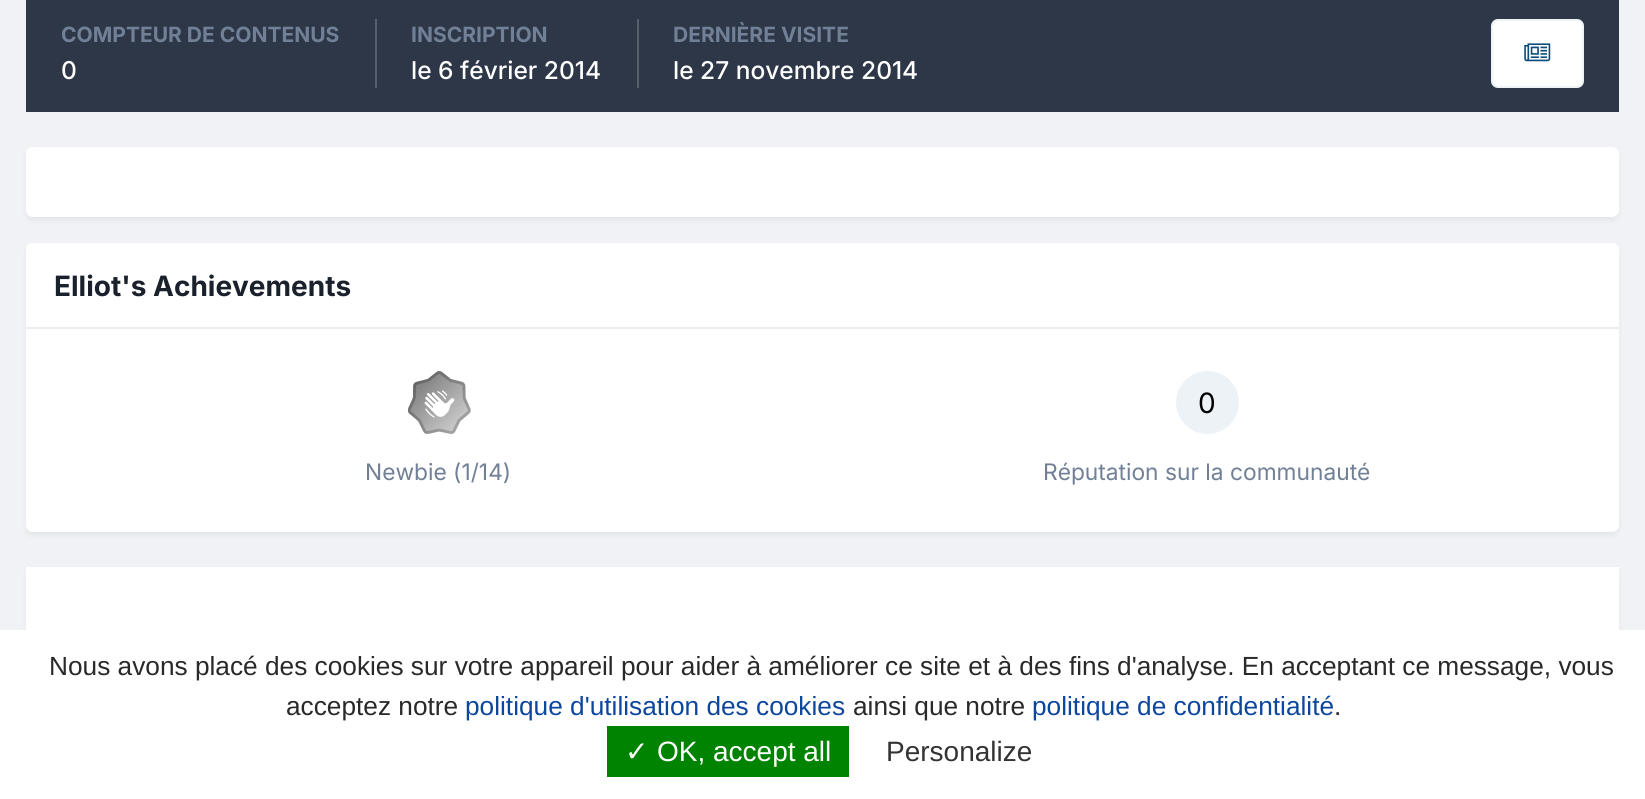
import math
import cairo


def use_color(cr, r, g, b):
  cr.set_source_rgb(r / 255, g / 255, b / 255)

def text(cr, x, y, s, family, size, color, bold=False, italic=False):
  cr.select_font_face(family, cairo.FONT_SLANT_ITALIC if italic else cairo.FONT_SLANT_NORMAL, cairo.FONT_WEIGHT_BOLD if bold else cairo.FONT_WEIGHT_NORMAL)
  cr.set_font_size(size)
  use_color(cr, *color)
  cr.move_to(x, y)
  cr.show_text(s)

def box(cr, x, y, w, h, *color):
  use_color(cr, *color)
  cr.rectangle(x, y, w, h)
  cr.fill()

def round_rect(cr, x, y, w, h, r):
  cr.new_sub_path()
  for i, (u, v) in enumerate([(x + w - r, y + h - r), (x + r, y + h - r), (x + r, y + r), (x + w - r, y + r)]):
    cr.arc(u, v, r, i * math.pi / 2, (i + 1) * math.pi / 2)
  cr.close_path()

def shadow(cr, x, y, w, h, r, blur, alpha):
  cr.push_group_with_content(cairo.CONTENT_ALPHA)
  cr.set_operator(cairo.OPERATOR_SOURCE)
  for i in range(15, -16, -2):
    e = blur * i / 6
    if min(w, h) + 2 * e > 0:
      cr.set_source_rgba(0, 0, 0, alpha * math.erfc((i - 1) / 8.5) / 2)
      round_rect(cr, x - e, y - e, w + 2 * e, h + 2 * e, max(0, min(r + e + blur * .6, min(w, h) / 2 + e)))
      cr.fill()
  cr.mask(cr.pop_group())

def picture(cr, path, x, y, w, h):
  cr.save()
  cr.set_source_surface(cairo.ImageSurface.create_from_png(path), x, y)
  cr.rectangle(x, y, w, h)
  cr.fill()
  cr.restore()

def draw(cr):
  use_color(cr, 240, 242, 245)
  cr.paint()
  box(cr, 26, 0, 1593, 112, 45, 55, 72)
  box(cr, 375, 19, 2, 69, 87, 95, 109)
  box(cr, 637, 19, 2, 69, 87, 95, 109)
  use_color(cr, 255, 255, 255)
  round_rect(cr, 1491, 19, 93, 69, 7)
  cr.fill()
  round_rect(cr, 1492, 20, 91, 67, 6)
  cr.set_source_rgba(0.055, 0.298, 0.475, 0.07)
  cr.stroke()
  picture(cr, "img_01.png", 1524, 43, 27, 19)
  use_color(cr, 45, 55, 72)
  shadow(cr, 28, 152, 1589, 67, 5, 3.5, 0.1)
  use_color(cr, 255, 255, 255)
  round_rect(cr, 26, 147, 1593, 70, 7)
  cr.fill()
  use_color(cr, 45, 55, 72)
  shadow(cr, 28, 249, 1589, 285, 5, 3.5, 0.1)
  use_color(cr, 255, 255, 255)
  round_rect(cr, 26, 243, 1593, 289, 7)
  cr.fill()
  cr.new_path()
  cr.move_to(33, 243)
  cr.line_to(1612, 243)
  cr.curve_to(1616, 243, 1619, 246, 1619, 250)
  cr.line_to(1619, 329)
  cr.line_to(26, 329)
  cr.line_to(26, 250)
  cr.curve_to(26, 246, 29, 243, 33, 243)
  cr.close_path()
  cr.fill()
  box(cr, 26, 327, 1593, 2, 234, 236, 239)
  picture(cr, "img_02.png", 408, 371, 63, 63)
  use_color(cr, 237, 242, 247)
  cr.arc(1207.5, 402.5, 31.5, 0, 2 * math.pi)
  cr.fill()
  use_color(cr, 45, 55, 72)
  shadow(cr, 28, 572, 1589, 172, 5, 3.5, 0.1)
  box(cr, 26, 567, 1593, 63, 255, 255, 255)
  box(cr, 0, 630, 1645, 169, 255, 255, 255)
  box(cr, 607, 726, 242, 51, 0, 131, 0)
  text(cr, 61, 42, "COMPTEUR DE CONTENUS", "Inter", 21, (113, 128, 150), bold=True)
  text(cr, 61, 79, "0", "Inter Medium", 24.5, (255, 255, 255))
  text(cr, 411, 42, "INSCRIPTION", "Inter", 21, (113, 128, 150), bold=True)
  text(cr, 411, 79, "le 6 février 2014", "Inter Medium", 24.5, (255, 255, 255))
  text(cr, 673, 42, "DERNIÈRE VISITE", "Inter", 21, (113, 128, 150), bold=True)
  text(cr, 673, 79, "le 27 novembre 2014", "Inter Medium", 24.5, (255, 255, 255))
  text(cr, 54, 296, "Elliot's Achievements", "Inter", 28, (26, 32, 44), bold=True)
  text(cr, 365, 480, "Newbie (1/14)", "Inter", 22.75, (113, 128, 150))
  text(cr, 1198, 413, "0", "Inter", 28, (0, 0, 0))
  text(cr, 1043, 480, "Réputation sur la communauté", "Inter", 22.75, (113, 128, 150))
  text(cr, 49, 675, "Nous avons placé des cookies sur votre appareil pour aider à améliorer ce site et à des fins d'analyse. En acceptant ce message, vous", "Liberation Sans", 26.25, (41, 41, 41))
  text(cr, 286, 715, "acceptez notre", "Liberation Sans", 26.25, (41, 41, 41))
  text(cr, 465, 715, "politique d'utilisation des cookies", "Liberation Sans", 26.25, (12, 70, 157))
  text(cr, 853, 715, "ainsi que notre", "Liberation Sans", 26.25, (41, 41, 41))
  text(cr, 1032, 715, "politique de confidentialité", "Liberation Sans", 26.25, (12, 70, 157))
  text(cr, 1334, 715, ".", "Liberation Sans", 26.25, (41, 41, 41))
  text(cr, 625, 761, "✓", "DejaVu Sans", 28, (255, 255, 255))
  text(cr, 657, 761, "OK, accept all", "Liberation Sans", 28, (255, 255, 255))
  text(cr, 886, 761, "Personalize", "Liberation Sans", 28, (51, 51, 51))


surface = cairo.ImageSurface(cairo.FORMAT_RGB24, 1645, 799)
cr = cairo.Context(surface)
options = cairo.FontOptions()
options.set_hint_metrics(cairo.HINT_METRICS_OFF)
options.set_hint_style(cairo.HINT_STYLE_NONE)
cr.set_font_options(options)
cr.set_miter_limit(4)
draw(cr)
surface.write_to_png("out.png")
